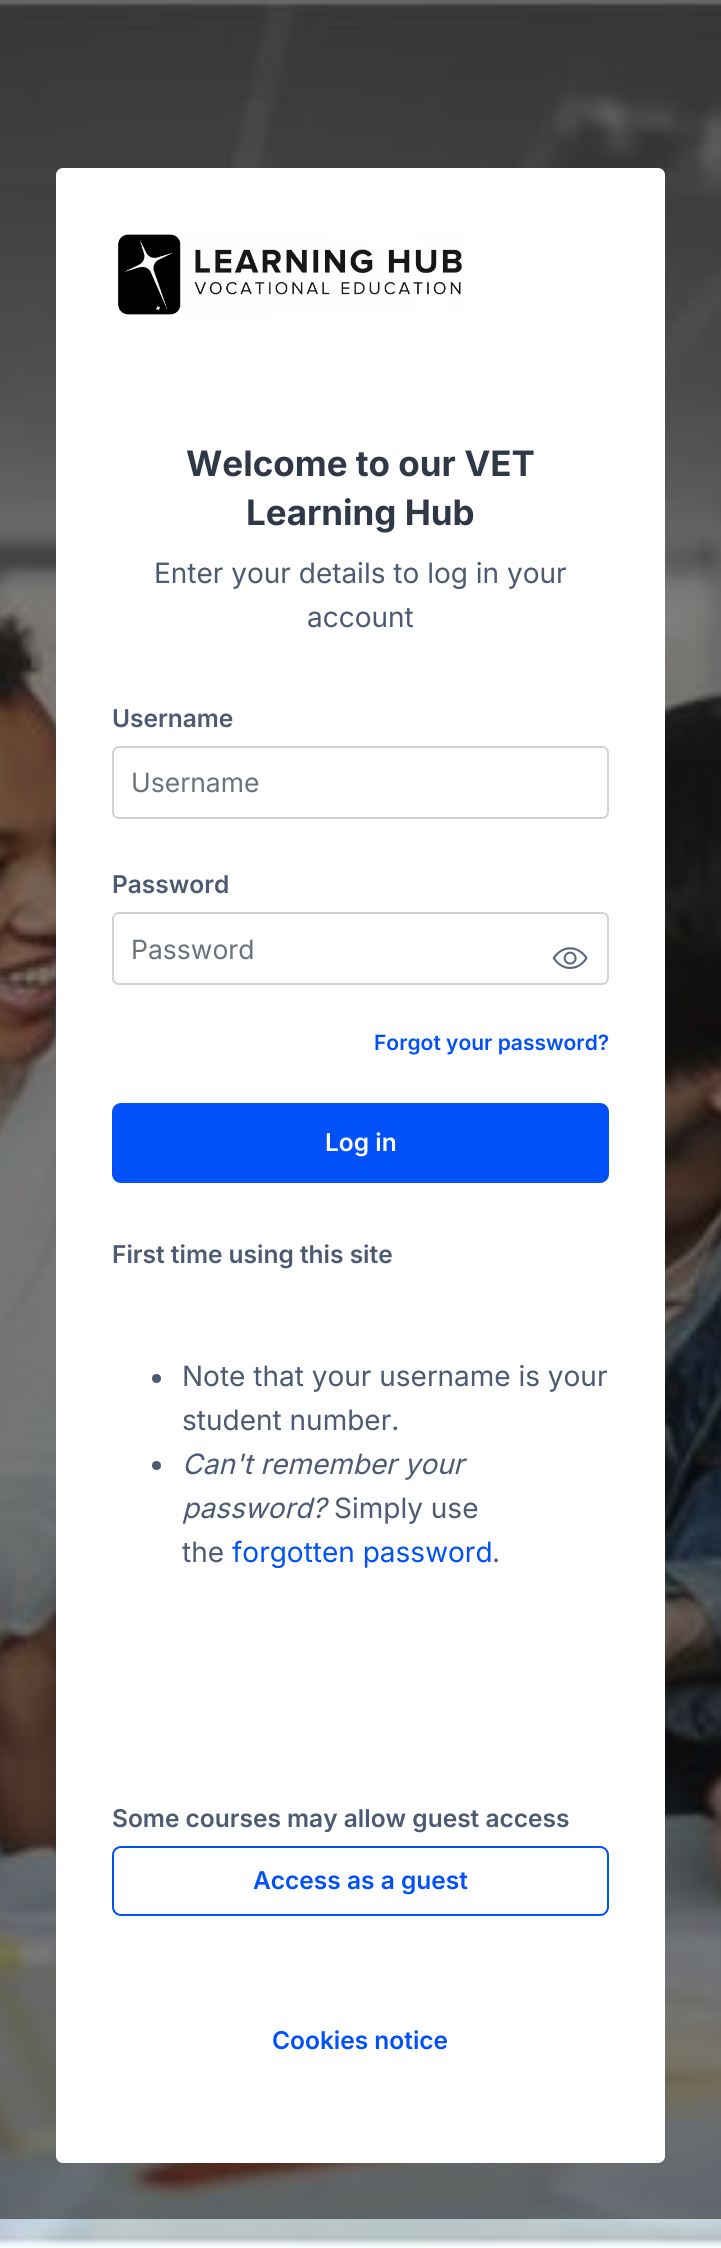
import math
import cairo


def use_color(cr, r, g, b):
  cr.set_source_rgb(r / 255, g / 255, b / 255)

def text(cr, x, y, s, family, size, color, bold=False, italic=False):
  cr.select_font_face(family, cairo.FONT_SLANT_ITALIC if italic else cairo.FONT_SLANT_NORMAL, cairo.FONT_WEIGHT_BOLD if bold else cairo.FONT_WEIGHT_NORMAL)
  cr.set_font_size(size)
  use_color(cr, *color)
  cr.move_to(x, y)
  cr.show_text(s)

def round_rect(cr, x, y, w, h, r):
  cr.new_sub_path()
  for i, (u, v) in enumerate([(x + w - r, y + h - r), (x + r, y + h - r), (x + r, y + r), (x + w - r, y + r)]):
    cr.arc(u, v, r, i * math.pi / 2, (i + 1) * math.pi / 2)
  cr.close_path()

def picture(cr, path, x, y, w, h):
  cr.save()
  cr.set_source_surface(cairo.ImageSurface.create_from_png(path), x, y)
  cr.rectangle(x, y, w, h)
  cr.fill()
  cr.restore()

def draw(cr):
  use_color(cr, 255, 255, 255)
  cr.paint()
  picture(cr, "img_01.png", 0, 0, 721, 2248)
  use_color(cr, 255, 255, 255)
  round_rect(cr, 56, 168, 609, 1995, 7)
  cr.fill()
  picture(cr, "img_02.png", 118, 234, 344, 81)
  round_rect(cr, 113, 747, 495, 71, 6)
  use_color(cr, 206, 212, 218)
  cr.stroke()
  round_rect(cr, 113, 913, 495, 71, 6)
  cr.stroke()
  picture(cr, "img_03.png", 552, 947, 36, 22)
  use_color(cr, 0, 81, 249)
  round_rect(cr, 113, 1104, 495, 78, 8)
  cr.fill_preserve()
  cr.stroke()
  use_color(cr, 76, 90, 115)
  cr.arc(156.5, 1378.5, 4.5, 0, 2 * math.pi)
  cr.fill()
  cr.arc(156.5, 1465.5, 4.5, 0, 2 * math.pi)
  cr.fill()
  round_rect(cr, 113, 1847, 495, 68, 8)
  use_color(cr, 0, 81, 249)
  cr.stroke()
  text(cr, 186, 476, "Welcome to our VET", "Inter", 35, (47, 56, 71), bold=True)
  text(cr, 246, 525, "Learning Hub", "Inter", 35, (47, 56, 71), bold=True)
  text(cr, 154, 583, "Enter your details to log in your", "Inter", 28, (76, 90, 115))
  text(cr, 307, 627, "account", "Inter", 28, (76, 90, 115))
  text(cr, 112, 727, "Username", "Inter SemiBold", 24.5, (76, 90, 115))
  text(cr, 131, 792, "Username", "Inter", 26.5, (106, 115, 123))
  text(cr, 112, 893, "Password", "Inter SemiBold", 24.5, (76, 90, 115))
  text(cr, 131, 959, "Password", "Inter", 26.5, (106, 115, 123))
  text(cr, 374, 1050, "Forgot your password?", "Inter SemiBold", 21, (0, 81, 249))
  text(cr, 325, 1151, "Log in", "Inter SemiBold", 24.5, (255, 255, 255))
  text(cr, 112, 1263, "First time using this site", "Inter SemiBold", 24.5, (76, 90, 115))
  text(cr, 182, 1386, "Note that your username is your", "Inter", 28, (76, 90, 115))
  text(cr, 182, 1430, "student number.", "Inter", 28, (76, 90, 115))
  text(cr, 182, 1474, "Can't remember your", "Inter", 28, (76, 90, 115), italic=True)
  text(cr, 182, 1518, "password?", "Inter", 28, (76, 90, 115), italic=True)
  text(cr, 334, 1518, "Simply use", "Inter", 28, (76, 90, 115))
  text(cr, 182, 1562, "the", "Inter", 28, (76, 90, 115))
  text(cr, 232, 1562, "forgotten password", "Inter", 28, (0, 81, 249))
  text(cr, 492, 1562, ".", "Inter", 28, (76, 90, 115))
  text(cr, 112, 1827, "Some courses may allow guest access", "Inter SemiBold", 24.5, (76, 90, 115))
  text(cr, 253, 1889, "Access as a guest", "Inter SemiBold", 24.5, (0, 81, 249))
  text(cr, 272, 2049, "Cookies notice", "Inter SemiBold", 24.5, (0, 81, 249))


surface = cairo.ImageSurface(cairo.FORMAT_RGB24, 721, 2248)
cr = cairo.Context(surface)
options = cairo.FontOptions()
options.set_hint_metrics(cairo.HINT_METRICS_OFF)
options.set_hint_style(cairo.HINT_STYLE_NONE)
cr.set_font_options(options)
cr.set_miter_limit(4)
draw(cr)
surface.write_to_png("out.png")
